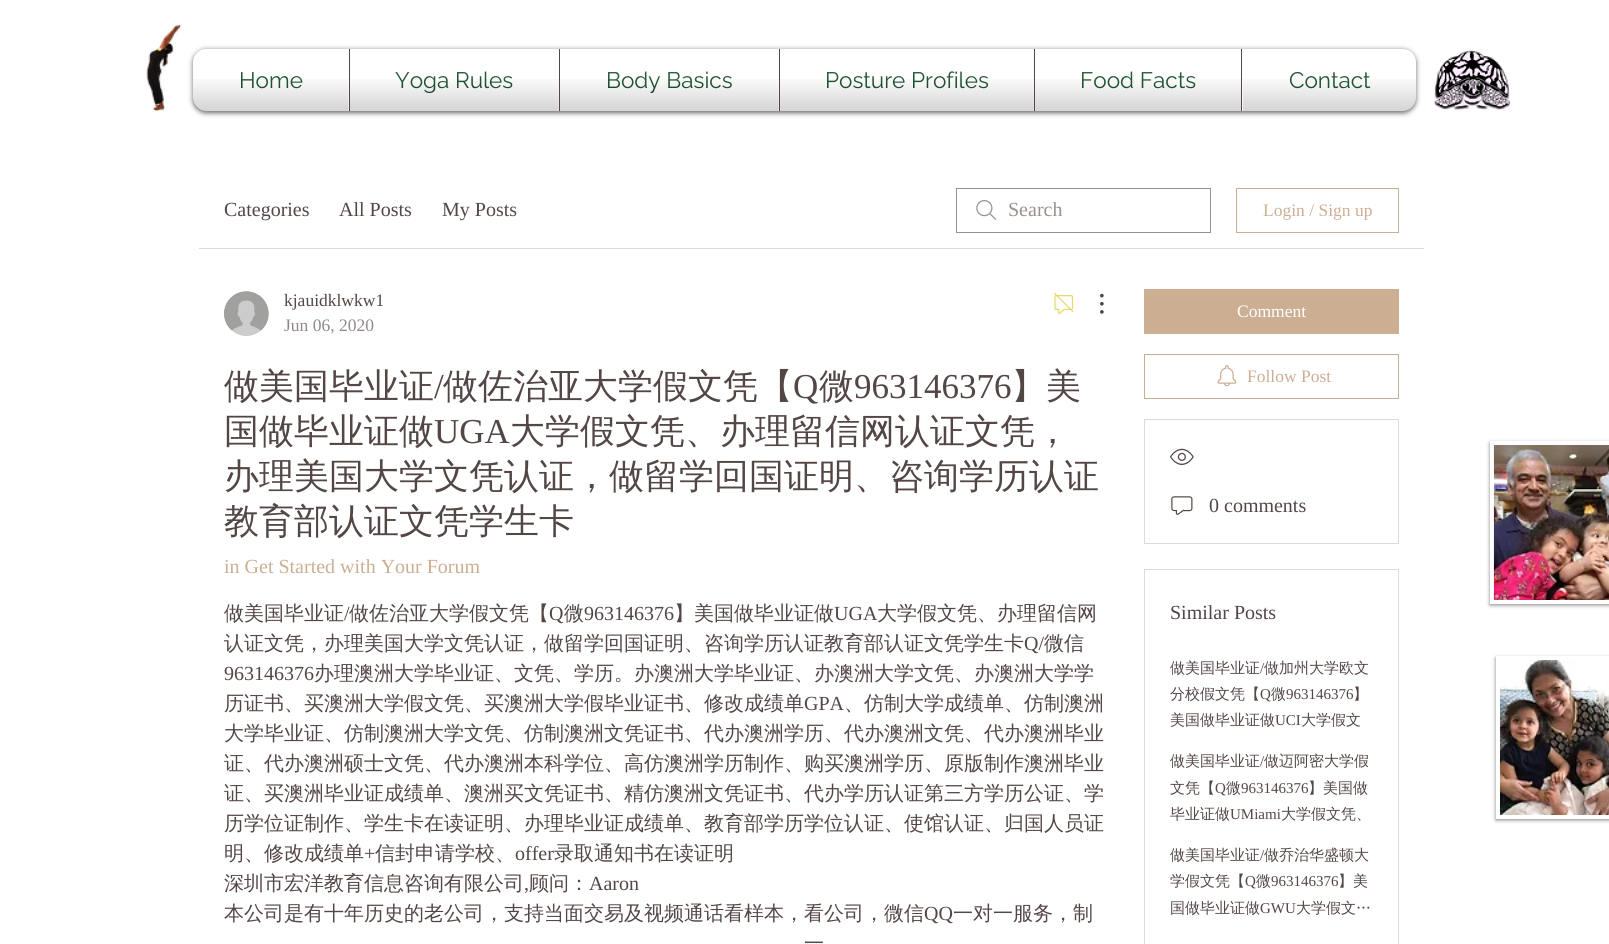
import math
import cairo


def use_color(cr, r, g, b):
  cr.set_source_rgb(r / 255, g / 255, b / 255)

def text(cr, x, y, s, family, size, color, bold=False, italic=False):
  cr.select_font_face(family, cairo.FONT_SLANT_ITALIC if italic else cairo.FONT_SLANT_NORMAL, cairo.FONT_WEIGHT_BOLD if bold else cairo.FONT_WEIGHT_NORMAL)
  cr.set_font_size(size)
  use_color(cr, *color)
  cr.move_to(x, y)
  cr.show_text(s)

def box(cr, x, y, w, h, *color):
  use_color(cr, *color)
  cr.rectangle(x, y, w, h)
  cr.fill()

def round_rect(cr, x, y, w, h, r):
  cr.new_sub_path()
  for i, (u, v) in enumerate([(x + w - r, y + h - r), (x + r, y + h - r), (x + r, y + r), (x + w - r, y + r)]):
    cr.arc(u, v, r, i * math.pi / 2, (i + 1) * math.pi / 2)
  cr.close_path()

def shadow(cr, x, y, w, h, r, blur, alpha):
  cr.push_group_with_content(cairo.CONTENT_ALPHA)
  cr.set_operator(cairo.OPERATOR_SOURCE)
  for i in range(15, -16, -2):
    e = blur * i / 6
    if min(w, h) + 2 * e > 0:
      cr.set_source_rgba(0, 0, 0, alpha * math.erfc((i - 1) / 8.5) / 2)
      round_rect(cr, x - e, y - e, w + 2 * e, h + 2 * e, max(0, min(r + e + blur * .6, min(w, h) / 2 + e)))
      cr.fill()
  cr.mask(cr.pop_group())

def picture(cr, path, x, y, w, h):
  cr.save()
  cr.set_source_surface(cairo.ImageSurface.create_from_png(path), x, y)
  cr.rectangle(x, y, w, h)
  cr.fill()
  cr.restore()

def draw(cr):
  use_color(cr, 255, 255, 255)
  cr.paint()
  picture(cr, "img_01.png", 146, 24, 36, 87)
  use_color(cr, 0, 0, 0)
  shadow(cr, 193, 50, 1223, 63, 13, 2.5, 0.6)
  picture(cr, "img_02.png", 193, 98, 1223, 1)
  use_color(cr, 255, 255, 255)
  cr.new_path()
  cr.move_to(206, 49)
  cr.line_to(349, 49)
  cr.line_to(349, 111)
  cr.line_to(206, 111)
  cr.curve_to(199, 111, 193, 105, 193, 98)
  cr.line_to(193, 62)
  cr.curve_to(193, 55, 199, 49, 206, 49)
  cr.close_path()
  cr.fill()
  box(cr, 350, 49, 209, 62, 255, 255, 255)
  box(cr, 349, 49, 1, 62, 83, 71, 69)
  box(cr, 560, 49, 219, 62, 255, 255, 255)
  box(cr, 559, 49, 1, 62, 83, 71, 69)
  box(cr, 780, 49, 254, 62, 255, 255, 255)
  box(cr, 779, 49, 1, 62, 83, 71, 69)
  box(cr, 1035, 49, 206, 62, 255, 255, 255)
  box(cr, 1034, 49, 1, 62, 83, 71, 69)
  use_color(cr, 255, 255, 255)
  cr.new_path()
  cr.move_to(1241, 49)
  cr.line_to(1403, 49)
  cr.curve_to(1410, 49, 1416, 55, 1416, 62)
  cr.line_to(1416, 98)
  cr.curve_to(1416, 105, 1410, 111, 1403, 111)
  cr.line_to(1241, 111)
  cr.close_path()
  cr.fill()
  box(cr, 1241, 49, 1, 62, 83, 71, 69)
  picture(cr, "img_15.png", 1434, 50, 76, 60)
  box(cr, 199, 248, 1225, 1, 221, 218, 218)
  picture(cr, "img_16.png", 976, 200, 21, 20)
  cr.rectangle(956.5, 188.5, 254, 44)
  use_color(cr, 152, 145, 143)
  cr.set_line_width(1)
  cr.stroke()
  cr.rectangle(1236.5, 188.5, 162, 44)
  use_color(cr, 204, 174, 147)
  cr.stroke()
  picture(cr, "img_17.png", 224, 291, 45, 45)
  picture(cr, "img_18.png", 1054, 293, 20, 22)
  picture(cr, "img_19.png", 1100, 293, 4, 21)
  box(cr, 1144, 289, 255, 45, 204, 174, 147)
  cr.rectangle(1144.5, 354.5, 254, 44)
  cr.stroke()
  picture(cr, "img_20.png", 1217, 365, 20, 22)
  cr.rectangle(1144.5, 419.5, 254, 124)
  use_color(cr, 221, 218, 218)
  cr.stroke()
  picture(cr, "img_21.png", 1170, 448, 24, 17)
  picture(cr, "img_22.png", 1171, 496, 22, 19)
  cr.rectangle(1144.5, 569.5, 254, 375)
  cr.stroke()
  use_color(cr, 0, 0, 0)
  shadow(cr, 1490, 443, 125, 162, 0, 2, 0.5)
  box(cr, 1490, 441, 119, 163, 255, 255, 255)
  picture(cr, "img_23.png", 1493, 445, 116, 155)
  use_color(cr, 0, 0, 0)
  shadow(cr, 1496, 658, 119, 162, 0, 2, 0.5)
  box(cr, 1496, 656, 113, 163, 255, 255, 255)
  picture(cr, "img_24.png", 1500, 660, 109, 155)
  text(cr, 239, 88, "Home", "Raleway", 22.5, (20, 77, 39))
  picture(cr, "img_03.png", 240, 72, 62, 16)
  picture(cr, "img_04.png", 193, 79, 156, 32)
  text(cr, 395, 88, "Yoga Rules", "Raleway", 22.5, (20, 77, 39))
  picture(cr, "img_05.png", 396, 71, 117, 18)
  picture(cr, "img_06.png", 350, 79, 209, 32)
  text(cr, 606, 88, "Body Basics", "Raleway", 22.5, (20, 77, 39))
  picture(cr, "img_07.png", 608, 71, 124, 18)
  picture(cr, "img_08.png", 560, 79, 219, 32)
  text(cr, 825, 88, "Posture Profiles", "Raleway", 22.5, (20, 77, 39))
  picture(cr, "img_09.png", 827, 71, 161, 17)
  picture(cr, "img_10.png", 780, 79, 254, 32)
  text(cr, 1080, 88, "Food Facts", "Raleway", 22.5, (20, 77, 39))
  picture(cr, "img_11.png", 1082, 71, 113, 17)
  picture(cr, "img_12.png", 1035, 79, 206, 32)
  text(cr, 1289, 88, "Contact", "Raleway", 22.5, (20, 77, 39))
  picture(cr, "img_13.png", 1289, 72, 80, 16)
  picture(cr, "img_14.png", 1242, 79, 174, 32)
  text(cr, 224, 216, "Categories", "Liberation Serif", 20, (83, 71, 69))
  text(cr, 339, 216, "All Posts", "Liberation Serif", 20, (83, 71, 69))
  text(cr, 442, 216, "My Posts", "Liberation Serif", 20, (83, 71, 69))
  text(cr, 1008, 216, "Search", "Liberation Serif", 20, (152, 145, 143))
  text(cr, 1263, 216, "Login / Sign up", "Liberation Serif", 17.5, (204, 174, 147))
  text(cr, 284, 306, "kjauidklwkw1", "Liberation Serif", 17.5, (83, 71, 69))
  text(cr, 284, 331, "Jun 06, 2020", "Liberation Serif", 17.5, (145, 137, 136))
  text(cr, 224, 398, "做美国毕业证", "WenQuanYi Zen Hei Medium", 35, (83, 71, 69))
  text(cr, 434, 398, "/", "Liberation Serif", 35, (83, 71, 69))
  text(cr, 443, 398, "做佐治亚大学假文凭【", "WenQuanYi Zen Hei Medium", 35, (83, 71, 69))
  text(cr, 793, 398, "Q", "Liberation Serif", 35, (83, 71, 69))
  text(cr, 819, 398, "微", "WenQuanYi Zen Hei Medium", 35, (83, 71, 69))
  text(cr, 854, 398, "963146376", "Liberation Serif", 35, (83, 71, 69))
  text(cr, 1011, 398, "】美", "WenQuanYi Zen Hei Medium", 35, (83, 71, 69))
  text(cr, 224, 443, "国做毕业证做", "WenQuanYi Zen Hei Medium", 35, (83, 71, 69))
  text(cr, 434, 443, "UGA", "Liberation Serif", 35, (83, 71, 69))
  text(cr, 510, 443, "大学假文凭、办理留信网认证文凭，", "WenQuanYi Zen Hei Medium", 35, (83, 71, 69))
  text(cr, 224, 488, "办理美国大学文凭认证，做留学回国证明、咨询学历认证", "WenQuanYi Zen Hei Medium", 35, (83, 71, 69))
  text(cr, 224, 533, "教育部认证文凭学生卡", "WenQuanYi Zen Hei Medium", 35, (83, 71, 69))
  text(cr, 224, 573, "in Get Started with Your Forum", "Liberation Serif", 20, (204, 174, 147))
  text(cr, 224, 620, "做美国毕业证", "WenQuanYi Zen Hei Medium", 20, (83, 71, 69))
  text(cr, 344, 620, "/", "Liberation Serif", 20, (83, 71, 69))
  text(cr, 349, 620, "做佐治亚大学假文凭【", "WenQuanYi Zen Hei Medium", 20, (83, 71, 69))
  text(cr, 549, 620, "Q", "Liberation Serif", 20, (83, 71, 69))
  text(cr, 564, 620, "微", "WenQuanYi Zen Hei Medium", 20, (83, 71, 69))
  text(cr, 584, 620, "963146376", "Liberation Serif", 20, (83, 71, 69))
  text(cr, 674, 620, "】美国做毕业证做", "WenQuanYi Zen Hei Medium", 20, (83, 71, 69))
  text(cr, 834, 620, "UGA", "Liberation Serif", 20, (83, 71, 69))
  text(cr, 877, 620, "大学假文凭、办理留信网", "WenQuanYi Zen Hei Medium", 20, (83, 71, 69))
  text(cr, 224, 650, "认证文凭，办理美国大学文凭认证，做留学回国证明、咨询学历认证教育部认证文凭学生卡", "WenQuanYi Zen Hei Medium", 20, (83, 71, 69))
  text(cr, 1024, 650, "Q/", "Liberation Serif", 20, (83, 71, 69))
  text(cr, 1044, 650, "微信", "WenQuanYi Zen Hei Medium", 20, (83, 71, 69))
  text(cr, 224, 680, "963146376", "Liberation Serif", 20, (83, 71, 69))
  text(cr, 314, 680, "办理澳洲大学毕业证、文凭、学历。办澳洲大学毕业证、办澳洲大学文凭、办澳洲大学学", "WenQuanYi Zen Hei Medium", 20, (83, 71, 69))
  text(cr, 224, 710, "历证书、买澳洲大学假文凭、买澳洲大学假毕业证书、修改成绩单", "WenQuanYi Zen Hei Medium", 20, (83, 71, 69))
  text(cr, 804, 710, "GPA", "Liberation Serif", 20, (83, 71, 69))
  text(cr, 844, 710, "、仿制大学成绩单、仿制澳洲", "WenQuanYi Zen Hei Medium", 20, (83, 71, 69))
  text(cr, 224, 740, "大学毕业证、仿制澳洲大学文凭、仿制澳洲文凭证书、代办澳洲学历、代办澳洲文凭、代办澳洲毕业", "WenQuanYi Zen Hei Medium", 20, (83, 71, 69))
  text(cr, 224, 770, "证、代办澳洲硕士文凭、代办澳洲本科学位、高仿澳洲学历制作、购买澳洲学历、原版制作澳洲毕业", "WenQuanYi Zen Hei Medium", 20, (83, 71, 69))
  text(cr, 224, 800, "证、买澳洲毕业证成绩单、澳洲买文凭证书、精仿澳洲文凭证书、代办学历认证第三方学历公证、学", "WenQuanYi Zen Hei Medium", 20, (83, 71, 69))
  text(cr, 224, 830, "历学位证制作、学生卡在读证明、办理毕业证成绩单、教育部学历学位认证、使馆认证、归国人员证", "WenQuanYi Zen Hei Medium", 20, (83, 71, 69))
  text(cr, 224, 860, "明、修改成绩单", "WenQuanYi Zen Hei Medium", 20, (83, 71, 69))
  text(cr, 364, 860, "+", "Liberation Serif", 20, (83, 71, 69))
  text(cr, 375, 860, "信封申请学校、", "WenQuanYi Zen Hei Medium", 20, (83, 71, 69))
  text(cr, 515, 860, "offer", "Liberation Serif", 20, (83, 71, 69))
  text(cr, 554, 860, "录取通知书在读证明", "WenQuanYi Zen Hei Medium", 20, (83, 71, 69))
  text(cr, 224, 890, "深圳市宏洋教育信息咨询有限公司", "WenQuanYi Zen Hei Medium", 20, (83, 71, 69))
  text(cr, 524, 890, ",", "Liberation Serif", 20, (83, 71, 69))
  text(cr, 529, 890, "顾问：", "WenQuanYi Zen Hei Medium", 20, (83, 71, 69))
  text(cr, 589, 890, "Aaron", "Liberation Serif", 20, (83, 71, 69))
  text(cr, 224, 920, "本公司是有十年历史的老公司，支持当面交易及视频通话看样本，看公司，微信", "WenQuanYi Zen Hei Medium", 20, (83, 71, 69))
  text(cr, 924, 920, "QQ", "Liberation Serif", 20, (83, 71, 69))
  text(cr, 953, 920, "一对一服务，制", "WenQuanYi Zen Hei Medium", 20, (83, 71, 69))
  text(cr, 804, 950, "一", "WenQuanYi Zen Hei Medium", 20, (83, 71, 69))
  text(cr, 1237, 317, "Comment", "Liberation Serif", 17.5, (255, 255, 255))
  text(cr, 1247, 382, "Follow Post", "Liberation Serif", 17.5, (204, 174, 147))
  text(cr, 1209, 512, "0 comments", "Liberation Serif", 20, (83, 71, 69))
  text(cr, 1170, 619, "Similar Posts", "Liberation Serif", 20, (83, 71, 69))
  text(cr, 1170, 673, "做美国毕业证", "WenQuanYi Zen Hei Medium", 15, (83, 71, 69))
  text(cr, 1260, 673, "/", "Liberation Serif", 15, (83, 71, 69))
  text(cr, 1264, 673, "做加州大学欧文", "WenQuanYi Zen Hei Medium", 15, (83, 71, 69))
  text(cr, 1170, 699, "分校假文凭【", "WenQuanYi Zen Hei Medium", 15, (83, 71, 69))
  text(cr, 1260, 699, "Q", "Liberation Serif", 15, (83, 71, 69))
  text(cr, 1271, 699, "微", "WenQuanYi Zen Hei Medium", 15, (83, 71, 69))
  text(cr, 1286, 699, "963146376", "Liberation Serif", 15, (83, 71, 69))
  text(cr, 1353, 699, "】", "WenQuanYi Zen Hei Medium", 15, (83, 71, 69))
  text(cr, 1170, 725, "美国做毕业证做", "WenQuanYi Zen Hei Medium", 15, (83, 71, 69))
  text(cr, 1275, 725, "UCI", "Liberation Serif", 15, (83, 71, 69))
  text(cr, 1301, 725, "大学假文", "WenQuanYi Zen Hei Medium", 15, (83, 71, 69))
  text(cr, 1170, 766, "做美国毕业证", "WenQuanYi Zen Hei Medium", 15, (83, 71, 69))
  text(cr, 1260, 766, "/", "Liberation Serif", 15, (83, 71, 69))
  text(cr, 1264, 766, "做迈阿密大学假", "WenQuanYi Zen Hei Medium", 15, (83, 71, 69))
  text(cr, 1170, 793, "文凭【", "WenQuanYi Zen Hei Medium", 15, (83, 71, 69))
  text(cr, 1215, 793, "Q", "Liberation Serif", 15, (83, 71, 69))
  text(cr, 1226, 793, "微", "WenQuanYi Zen Hei Medium", 15, (83, 71, 69))
  text(cr, 1241, 793, "963146376", "Liberation Serif", 15, (83, 71, 69))
  text(cr, 1308, 793, "】美国做", "WenQuanYi Zen Hei Medium", 15, (83, 71, 69))
  text(cr, 1170, 819, "毕业证做", "WenQuanYi Zen Hei Medium", 15, (83, 71, 69))
  text(cr, 1230, 819, "UMiami", "Liberation Serif", 15, (83, 71, 69))
  text(cr, 1281, 819, "大学假文凭、", "WenQuanYi Zen Hei Medium", 15, (83, 71, 69))
  text(cr, 1170, 860, "做美国毕业证", "WenQuanYi Zen Hei Medium", 15, (83, 71, 69))
  text(cr, 1260, 860, "/", "Liberation Serif", 15, (83, 71, 69))
  text(cr, 1264, 860, "做乔治华盛顿大", "WenQuanYi Zen Hei Medium", 15, (83, 71, 69))
  text(cr, 1170, 886, "学假文凭【", "WenQuanYi Zen Hei Medium", 15, (83, 71, 69))
  text(cr, 1245, 886, "Q", "Liberation Serif", 15, (83, 71, 69))
  text(cr, 1256, 886, "微", "WenQuanYi Zen Hei Medium", 15, (83, 71, 69))
  text(cr, 1271, 886, "963146376", "Liberation Serif", 15, (83, 71, 69))
  text(cr, 1338, 886, "】美", "WenQuanYi Zen Hei Medium", 15, (83, 71, 69))
  text(cr, 1170, 913, "国做毕业证做", "WenQuanYi Zen Hei Medium", 15, (83, 71, 69))
  text(cr, 1260, 913, "GWU", "Liberation Serif", 15, (83, 71, 69))
  text(cr, 1296, 913, "大学假文…", "WenQuanYi Zen Hei Medium", 15, (83, 71, 69))


surface = cairo.ImageSurface(cairo.FORMAT_RGB24, 1609, 944)
cr = cairo.Context(surface)
options = cairo.FontOptions()
options.set_hint_metrics(cairo.HINT_METRICS_OFF)
options.set_hint_style(cairo.HINT_STYLE_NONE)
cr.set_font_options(options)
cr.set_miter_limit(4)
draw(cr)
surface.write_to_png("out.png")
